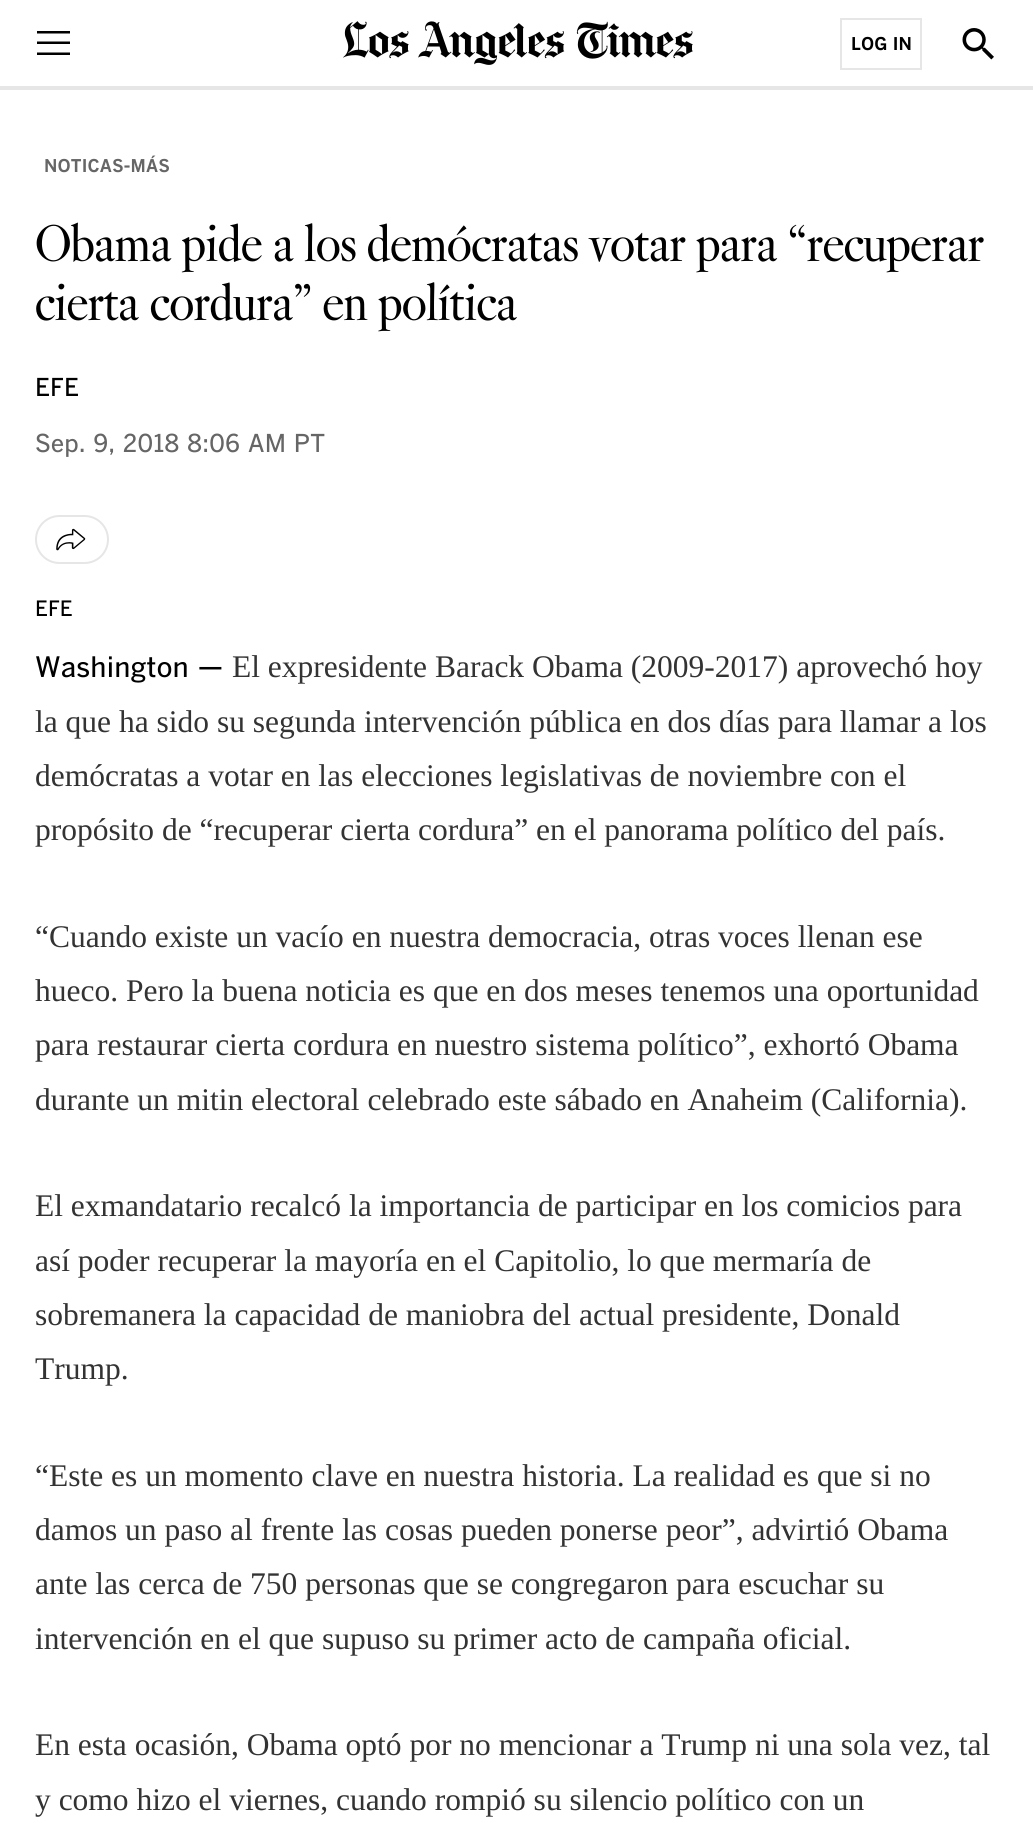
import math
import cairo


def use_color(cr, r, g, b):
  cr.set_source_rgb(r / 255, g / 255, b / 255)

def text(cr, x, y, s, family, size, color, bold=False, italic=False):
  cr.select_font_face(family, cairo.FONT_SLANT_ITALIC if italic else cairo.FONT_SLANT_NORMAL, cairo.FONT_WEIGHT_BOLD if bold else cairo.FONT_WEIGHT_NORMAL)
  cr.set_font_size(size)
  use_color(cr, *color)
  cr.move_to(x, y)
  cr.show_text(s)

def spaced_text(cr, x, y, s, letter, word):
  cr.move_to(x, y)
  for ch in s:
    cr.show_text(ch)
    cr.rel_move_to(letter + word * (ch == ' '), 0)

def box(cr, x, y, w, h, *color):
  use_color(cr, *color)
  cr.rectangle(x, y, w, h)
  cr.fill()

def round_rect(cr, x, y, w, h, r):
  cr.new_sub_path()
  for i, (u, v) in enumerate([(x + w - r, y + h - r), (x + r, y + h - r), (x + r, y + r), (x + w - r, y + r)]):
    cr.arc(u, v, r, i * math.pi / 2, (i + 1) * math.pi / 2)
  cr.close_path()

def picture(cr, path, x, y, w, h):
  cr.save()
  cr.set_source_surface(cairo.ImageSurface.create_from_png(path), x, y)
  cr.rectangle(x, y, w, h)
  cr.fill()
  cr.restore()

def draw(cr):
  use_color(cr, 255, 255, 255)
  cr.paint()
  use_color(cr, 0, 0, 0)
  cr.set_fill_rule(cairo.FILL_RULE_EVEN_ODD)
  cr.new_path()
  cr.move_to(37, 44)
  cr.line_to(37, 41.5)
  cr.line_to(70, 41.5)
  cr.line_to(70, 44)
  cr.close_path()
  cr.move_to(37, 33.5)
  cr.line_to(37, 31)
  cr.line_to(70, 31)
  cr.line_to(70, 33.5)
  cr.close_path()
  cr.move_to(37, 55)
  cr.line_to(37, 52.5)
  cr.line_to(70, 52.5)
  cr.line_to(70, 55)
  cr.close_path()
  cr.fill()
  picture(cr, "img_01.png", 343, 21, 350, 44)
  cr.rectangle(841, 19, 80, 50)
  use_color(cr, 230, 230, 230)
  cr.stroke()
  picture(cr, "img_02.png", 962, 28, 32, 32)
  box(cr, 0, 86, 1033, 4, 230, 230, 230)
  round_rect(cr, 36, 516, 72, 47, 23.5)
  cr.stroke()
  picture(cr, "img_03.png", 56, 528, 30, 23)
  text(cr, 851, 50, "LOG IN", "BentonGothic", 17.5, (0, 0, 0), bold=True)
  text(cr, 44, 172, "NOTICAS-MÁS", "BentonGothic", 17.5, (102, 102, 102), bold=True)
  cr.select_font_face("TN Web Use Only")
  cr.set_font_size(52.5)
  use_color(cr, 0, 0, 0)
  spaced_text(cr, 35, 261, "Obama pide a los demócratas votar para “recuperar", -0.35, 0)
  spaced_text(cr, 35, 320, "cierta cordura” en política", -0.35, 0)
  text(cr, 35, 396, "EFE", "BentonGothic Medium", 24.5, (0, 0, 0))
  text(cr, 35, 452, "Sep. 9, 2018 8:06 AM PT", "BentonGothic Medium", 24.5, (102, 102, 102))
  text(cr, 35, 616, "EFE", "BentonGothic Medium", 21, (0, 0, 0))
  text(cr, 35, 677, "Washington —", "BentonGothic Medium", 28, (0, 0, 0))
  text(cr, 232, 677, "El expresidente Barack Obama (2009-2017) aprovechó hoy", "Liberation Serif", 31.5, (51, 51, 51))
  text(cr, 35, 732, "la que ha sido su segunda intervención pública en dos días para llamar a los", "Liberation Serif", 31.5, (51, 51, 51))
  text(cr, 35, 786, "demócratas a votar en las elecciones legislativas de noviembre con el", "Liberation Serif", 31.5, (51, 51, 51))
  text(cr, 35, 840, "propósito de “recuperar cierta cordura” en el panorama político del país.", "Liberation Serif", 31.5, (51, 51, 51))
  text(cr, 35, 947, "“Cuando existe un vacío en nuestra democracia, otras voces llenan ese", "Liberation Serif", 31.5, (51, 51, 51))
  text(cr, 35, 1001, "hueco. Pero la buena noticia es que en dos meses tenemos una oportunidad", "Liberation Serif", 31.5, (51, 51, 51))
  text(cr, 35, 1055, "para restaurar cierta cordura en nuestro sistema político”, exhortó Obama", "Liberation Serif", 31.5, (51, 51, 51))
  text(cr, 35, 1110, "durante un mitin electoral celebrado este sábado en Anaheim (California).", "Liberation Serif", 31.5, (51, 51, 51))
  text(cr, 35, 1216, "El exmandatario recalcó la importancia de participar en los comicios para", "Liberation Serif", 31.5, (51, 51, 51))
  text(cr, 35, 1271, "así poder recuperar la mayoría en el Capitolio, lo que mermaría de", "Liberation Serif", 31.5, (51, 51, 51))
  text(cr, 35, 1325, "sobremanera la capacidad de maniobra del actual presidente, Donald", "Liberation Serif", 31.5, (51, 51, 51))
  text(cr, 35, 1379, "Trump.", "Liberation Serif", 31.5, (51, 51, 51))
  text(cr, 35, 1486, "“Este es un momento clave en nuestra historia. La realidad es que si no", "Liberation Serif", 31.5, (51, 51, 51))
  text(cr, 35, 1540, "damos un paso al frente las cosas pueden ponerse peor”, advirtió Obama", "Liberation Serif", 31.5, (51, 51, 51))
  text(cr, 35, 1594, "ante las cerca de 750 personas que se congregaron para escuchar su", "Liberation Serif", 31.5, (51, 51, 51))
  text(cr, 35, 1649, "intervención en el que supuso su primer acto de campaña oficial.", "Liberation Serif", 31.5, (51, 51, 51))
  text(cr, 35, 1755, "En esta ocasión, Obama optó por no mencionar a Trump ni una sola vez, tal", "Liberation Serif", 31.5, (51, 51, 51))
  text(cr, 35, 1810, "y como hizo el viernes, cuando rompió su silencio político con un", "Liberation Serif", 31.5, (51, 51, 51))


surface = cairo.ImageSurface(cairo.FORMAT_RGB24, 1033, 1823)
cr = cairo.Context(surface)
options = cairo.FontOptions()
options.set_hint_metrics(cairo.HINT_METRICS_OFF)
options.set_hint_style(cairo.HINT_STYLE_NONE)
cr.set_font_options(options)
cr.set_miter_limit(4)
draw(cr)
surface.write_to_png("out.png")
